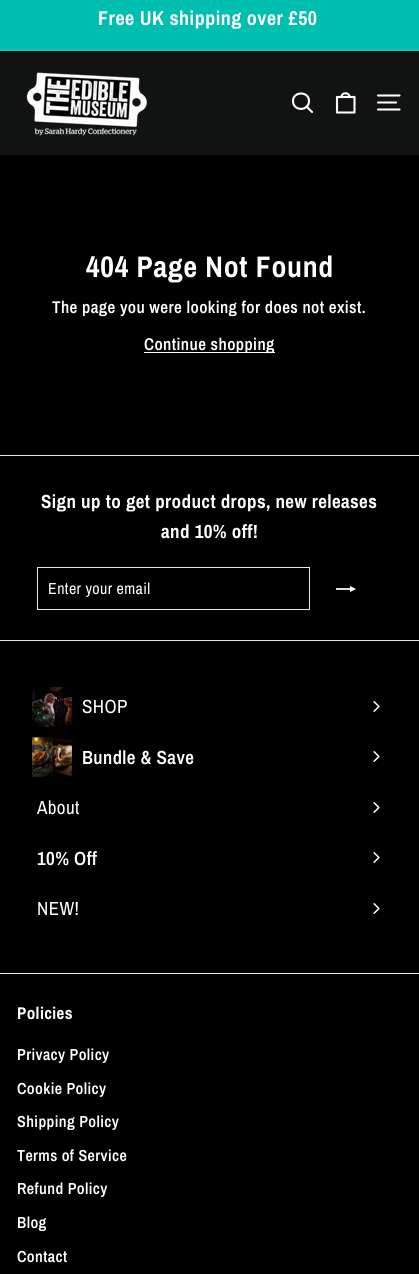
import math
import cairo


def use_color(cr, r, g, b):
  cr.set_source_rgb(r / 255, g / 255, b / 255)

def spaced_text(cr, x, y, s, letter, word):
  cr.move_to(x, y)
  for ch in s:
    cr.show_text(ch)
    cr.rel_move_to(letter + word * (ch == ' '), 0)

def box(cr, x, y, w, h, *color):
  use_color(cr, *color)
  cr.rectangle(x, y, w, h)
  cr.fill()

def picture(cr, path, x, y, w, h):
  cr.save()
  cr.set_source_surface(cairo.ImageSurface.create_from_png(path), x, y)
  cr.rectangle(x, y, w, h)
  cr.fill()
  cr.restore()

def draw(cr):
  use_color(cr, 0, 0, 0)
  cr.paint()
  box(cr, 0, 0, 419, 50, 0, 191, 174)
  box(cr, 0, 50, 419, 1, 38, 201, 186)
  box(cr, 0, 51, 419, 104, 17, 18, 18)
  picture(cr, "img_01.png", 26, 72, 121, 64)
  cr.new_path()
  cr.move_to(309, 101)
  cr.curve_to(309, 111.5, 293, 111.5, 293, 101)
  cr.curve_to(293, 91, 309, 91, 309, 101)
  cr.close_path()
  cr.move_to(312, 112)
  cr.line_to(306.5, 106.5)
  use_color(cr, 255, 255, 255)
  cr.set_line_width(2.1)
  cr.set_line_cap(cairo.LINE_CAP_ROUND)
  cr.set_line_join(cairo.LINE_JOIN_ROUND)
  cr.stroke()
  cr.new_path()
  cr.move_to(378, 95.5)
  cr.line_to(399.5, 95.5)
  cr.move_to(378, 102.5)
  cr.line_to(396, 102.5)
  cr.move_to(378, 109.5)
  cr.line_to(399.5, 109.5)
  cr.move_to(341.5, 97)
  cr.curve_to(341.5, 92, 349.5, 92, 349.5, 97)
  cr.stroke()
  cr.new_path()
  cr.move_to(337, 97)
  cr.line_to(354.5, 97)
  cr.line_to(354.5, 112.5)
  cr.line_to(337, 112.5)
  cr.close_path()
  cr.stroke()
  box(cr, 144, 352, 131, 1, 255, 255, 255)
  box(cr, 0, 455, 419, 1, 232, 232, 225)
  cr.rectangle(37.5, 567.5, 272, 42)
  cr.set_line_width(1)
  cr.set_line_cap(cairo.LINE_CAP_BUTT)
  cr.set_line_join(cairo.LINE_JOIN_MITER)
  cr.stroke()
  picture(cr, "img_02.png", 336, 586, 20, 6)
  box(cr, 0, 640, 419, 1, 232, 232, 225)
  picture(cr, "img_03.png", 32, 686, 40, 41)
  picture(cr, "img_04.png", 373, 701, 7, 11)
  picture(cr, "img_05.png", 32, 736, 40, 41)
  picture(cr, "img_04.png", 373, 751, 7, 11)
  picture(cr, "img_04.png", 373, 802, 7, 11)
  picture(cr, "img_04.png", 373, 852, 7, 11)
  picture(cr, "img_04.png", 373, 903, 7, 11)
  cr.set_source_rgba(0, 0, 0, 0.03)
  cr.rectangle(32, 693, 348, 222)
  cr.fill()
  box(cr, 0, 973, 419, 1, 232, 232, 225)
  cr.select_font_face("Archivo Narrow", cairo.FONT_SLANT_NORMAL, cairo.FONT_WEIGHT_BOLD)
  cr.set_font_size(20)
  use_color(cr, 255, 255, 255)
  spaced_text(cr, 98, 25, "Free UK shipping over £50", 0.5, 0)
  cr.set_font_size(29.75)
  spaced_text(cr, 86, 277, "404 Page Not Found", 0.75, 0)
  cr.select_font_face("Archivo Narrow SemiBold")
  cr.set_font_size(17)
  spaced_text(cr, 52, 313, "The page you were looking for does not exist.", 0.4, 0)
  spaced_text(cr, 144, 350, "Continue shopping", 0.4, 0)
  cr.select_font_face("Archivo Narrow", cairo.FONT_SLANT_NORMAL, cairo.FONT_WEIGHT_BOLD)
  cr.set_font_size(19)
  spaced_text(cr, 41, 508, "Sign up to get product drops, new releases", 0.4, 0)
  spaced_text(cr, 161, 538, "and 10% off!", 0.4, 0)
  cr.select_font_face("Archivo Narrow")
  cr.set_font_size(16)
  spaced_text(cr, 48, 594, "Enter your email", 0.4, 0)
  cr.set_font_size(19)
  spaced_text(cr, 82, 713, "SHOP", 0.4, 0)
  cr.select_font_face("Archivo Narrow SemiBold")
  spaced_text(cr, 82, 764, "Bundle & Save", 0.4, 0)
  cr.select_font_face("Archivo Narrow")
  spaced_text(cr, 37, 814, "About", 0.4, 0)
  cr.select_font_face("Archivo Narrow SemiBold")
  spaced_text(cr, 37, 865, "10% Off", 0.4, 0)
  cr.select_font_face("Archivo Narrow")
  spaced_text(cr, 37, 915, "NEW!", 0.4, 0)
  cr.select_font_face("Archivo Narrow", cairo.FONT_SLANT_NORMAL, cairo.FONT_WEIGHT_BOLD)
  cr.set_font_size(17)
  spaced_text(cr, 17, 1019, "Policies", 0.4, 0)
  cr.select_font_face("Archivo Narrow SemiBold")
  cr.set_font_size(16)
  spaced_text(cr, 17, 1060, "Privacy Policy", 0.4, 0)
  spaced_text(cr, 17, 1094, "Cookie Policy", 0.4, 0)
  spaced_text(cr, 17, 1127, "Shipping Policy", 0.4, 0)
  spaced_text(cr, 17, 1161, "Terms of Service", 0.4, 0)
  spaced_text(cr, 17, 1194, "Refund Policy", 0.4, 0)
  spaced_text(cr, 17, 1228, "Blog", 0.4, 0)
  spaced_text(cr, 17, 1262, "Contact", 0.4, 0)


surface = cairo.ImageSurface(cairo.FORMAT_RGB24, 419, 1274)
cr = cairo.Context(surface)
options = cairo.FontOptions()
options.set_hint_metrics(cairo.HINT_METRICS_OFF)
options.set_hint_style(cairo.HINT_STYLE_NONE)
cr.set_font_options(options)
cr.set_miter_limit(4)
draw(cr)
surface.write_to_png("out.png")
